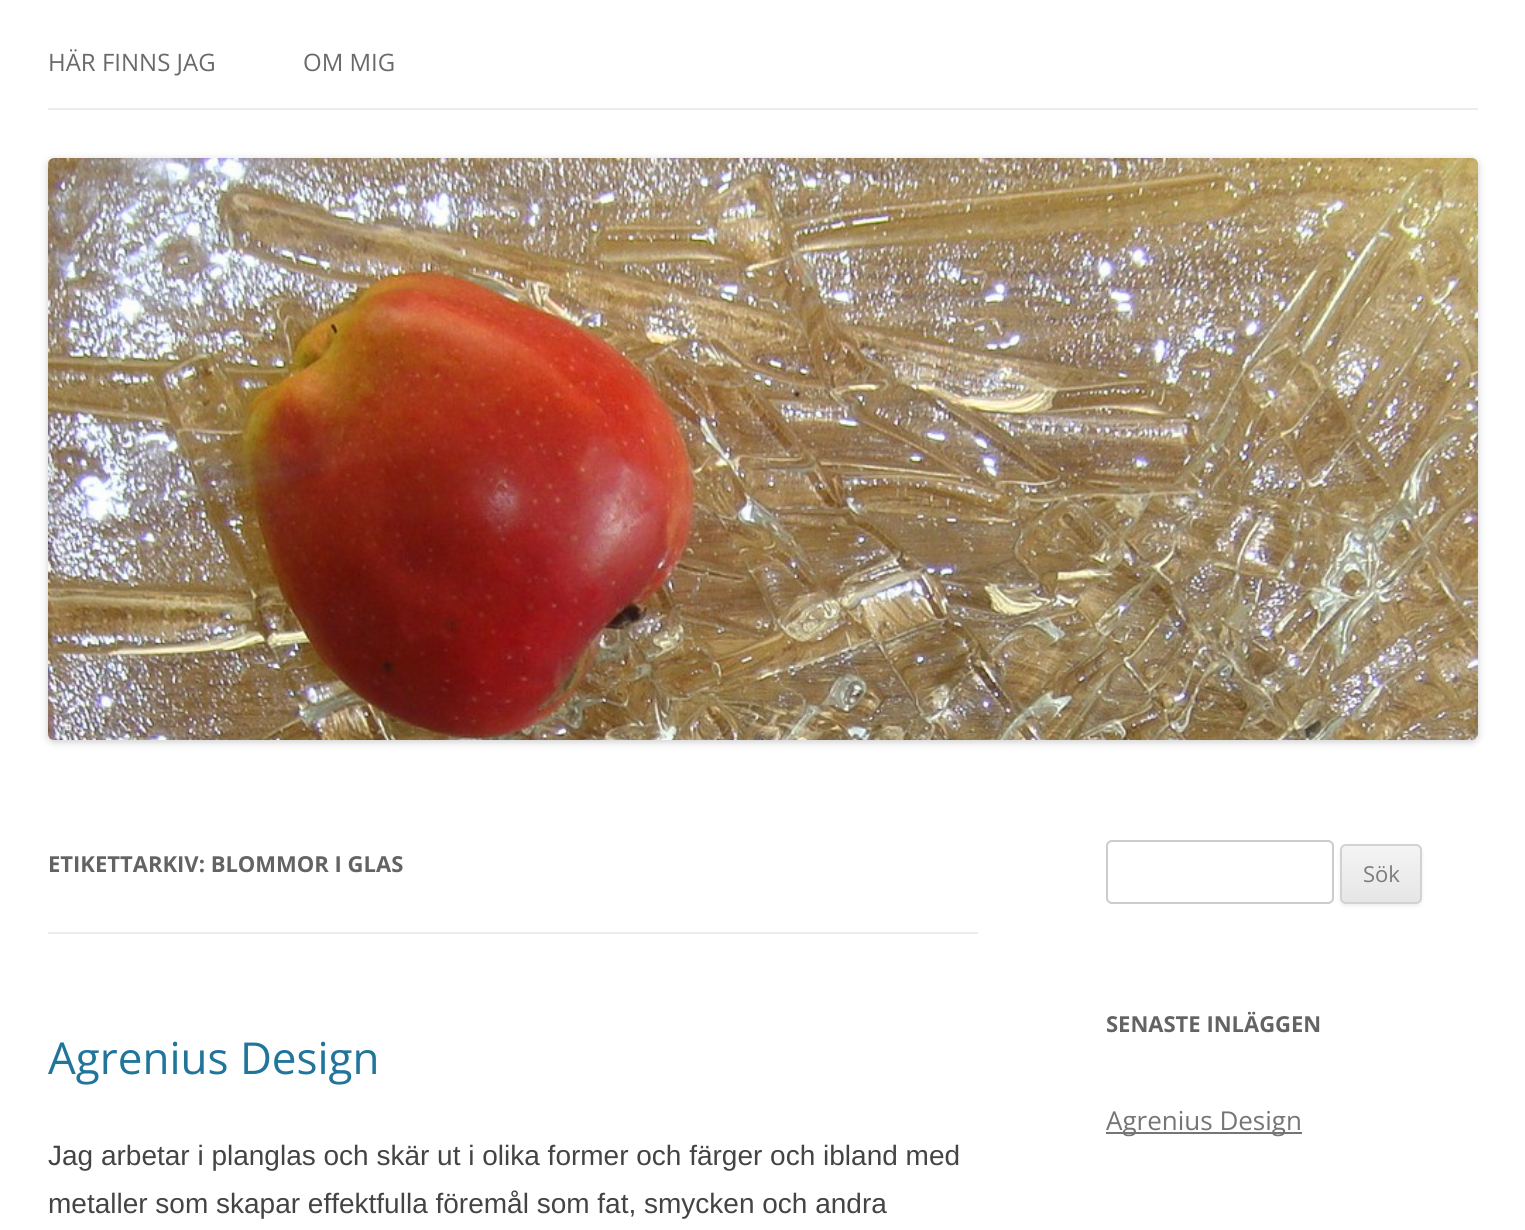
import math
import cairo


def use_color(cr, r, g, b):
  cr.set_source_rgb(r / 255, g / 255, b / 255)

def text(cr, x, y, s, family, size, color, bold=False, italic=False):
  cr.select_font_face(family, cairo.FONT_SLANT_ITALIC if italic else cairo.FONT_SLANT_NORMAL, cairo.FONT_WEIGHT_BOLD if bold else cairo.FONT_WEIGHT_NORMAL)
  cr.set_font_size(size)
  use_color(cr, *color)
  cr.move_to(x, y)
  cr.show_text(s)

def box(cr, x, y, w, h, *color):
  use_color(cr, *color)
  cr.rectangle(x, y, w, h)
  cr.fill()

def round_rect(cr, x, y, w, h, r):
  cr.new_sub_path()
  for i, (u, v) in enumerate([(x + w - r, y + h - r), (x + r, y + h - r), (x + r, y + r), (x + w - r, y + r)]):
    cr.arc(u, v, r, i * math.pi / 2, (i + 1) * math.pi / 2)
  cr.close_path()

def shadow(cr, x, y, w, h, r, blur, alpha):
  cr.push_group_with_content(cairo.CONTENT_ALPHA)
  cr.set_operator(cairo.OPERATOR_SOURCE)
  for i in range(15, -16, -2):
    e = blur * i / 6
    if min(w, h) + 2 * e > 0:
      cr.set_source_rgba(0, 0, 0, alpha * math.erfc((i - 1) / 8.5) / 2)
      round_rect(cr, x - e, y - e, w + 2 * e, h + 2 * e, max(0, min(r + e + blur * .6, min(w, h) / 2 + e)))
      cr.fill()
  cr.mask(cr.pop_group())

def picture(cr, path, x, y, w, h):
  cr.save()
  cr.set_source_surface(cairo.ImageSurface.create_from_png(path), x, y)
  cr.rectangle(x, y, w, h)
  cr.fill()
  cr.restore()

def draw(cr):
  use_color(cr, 255, 255, 255)
  cr.paint()
  box(cr, 48, 108, 1430, 2, 237, 237, 237)
  use_color(cr, 0, 0, 0)
  shadow(cr, 48, 160, 1430, 582, 6, 4, 0.2)
  picture(cr, "img_01.png", 48, 158, 1430, 582)
  box(cr, 48, 932, 930, 2, 237, 237, 237)
  round_rect(cr, 1107, 841, 226, 62, 5)
  use_color(cr, 204, 204, 204)
  cr.stroke()
  use_color(cr, 64, 64, 64)
  shadow(cr, 1340, 846, 82, 60, 6, 2, 0.1)
  cr.save()
  round_rect(cr, 1340, 844, 82, 60, 6)
  cr.clip()
  gradient = cairo.LinearGradient(1381, 846, 1381, 902)
  gradient.add_color_stop_rgba(0, 0.957, 0.957, 0.957, 1)
  gradient.add_color_stop_rgba(1, 0.902, 0.902, 0.902, 1)
  cr.set_source(gradient)
  cr.rectangle(1340, 846, 82, 56)
  cr.fill()
  cr.restore()
  round_rect(cr, 1341, 845, 80, 58, 5)
  use_color(cr, 210, 210, 210)
  cr.stroke()
  box(cr, 1106, 1132, 196, 2, 117, 117, 117)
  text(cr, 48, 71, "HÄR FINNS JAG", "Open Sans", 24, (106, 106, 106))
  text(cr, 303, 71, "OM MIG", "Open Sans", 24, (106, 106, 106))
  text(cr, 48, 872, "ETIKETTARKIV: BLOMMOR I GLAS", "Open Sans", 22, (99, 99, 99), bold=True)
  text(cr, 48, 1074, "Agrenius Design", "Open Sans", 44, (33, 117, 155))
  text(cr, 48, 1165, "Jag arbetar i planglas och skär ut i olika former och färger och ibland med", "Liberation Sans", 28, (68, 68, 68))
  text(cr, 48, 1213, "metaller som skapar effektfulla föremål som fat, smycken och andra", "Liberation Sans", 28, (68, 68, 68))
  text(cr, 1363, 882, "Sök", "Open Sans", 22, (124, 124, 124))
  text(cr, 1106, 1032, "SENASTE INLÄGGEN", "Open Sans", 22, (99, 99, 99), bold=True)
  text(cr, 1106, 1130, "Agrenius Design", "Open Sans", 26, (117, 117, 117))


surface = cairo.ImageSurface(cairo.FORMAT_RGB24, 1525, 1230)
cr = cairo.Context(surface)
options = cairo.FontOptions()
options.set_hint_metrics(cairo.HINT_METRICS_OFF)
options.set_hint_style(cairo.HINT_STYLE_NONE)
cr.set_font_options(options)
cr.set_miter_limit(4)
draw(cr)
surface.write_to_png("out.png")
